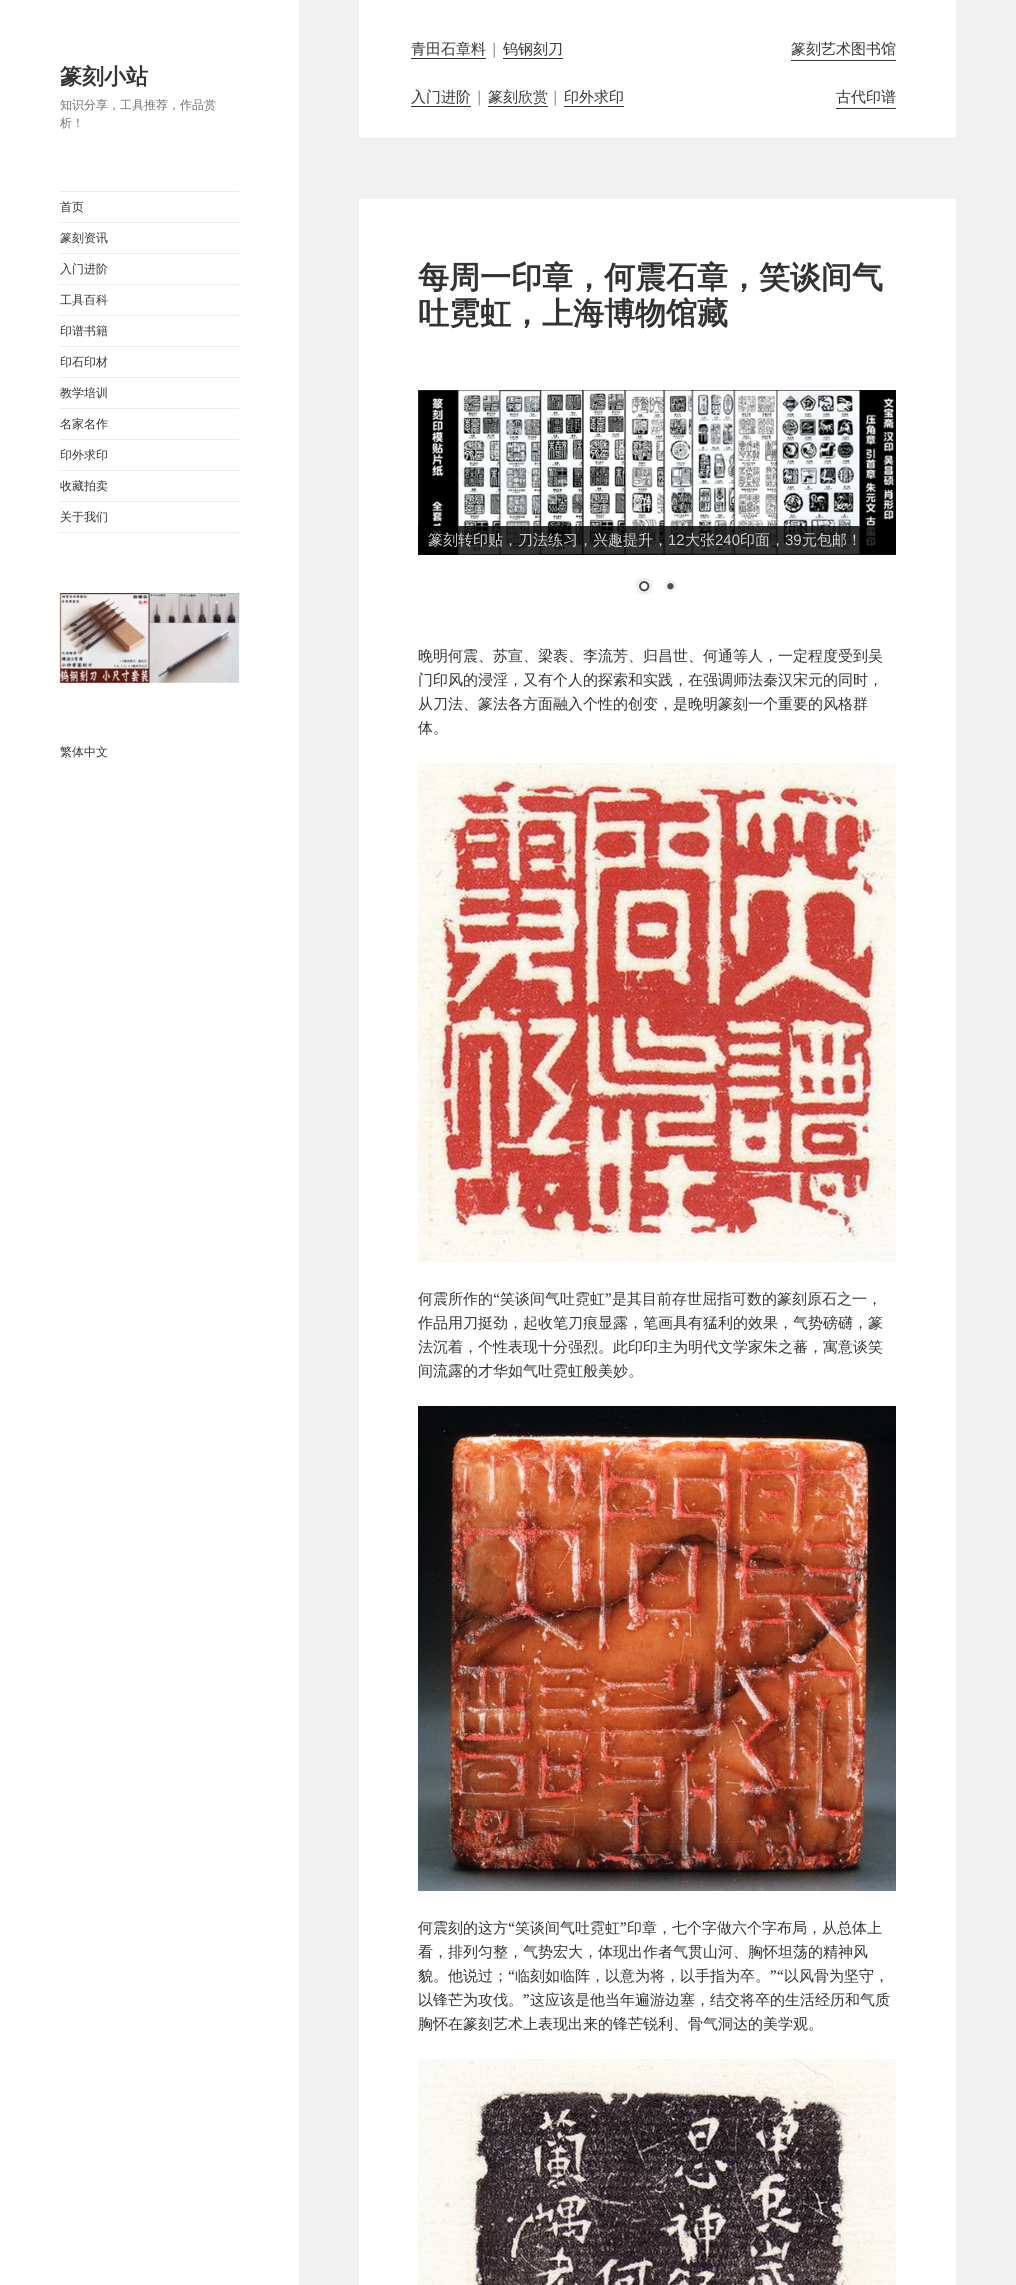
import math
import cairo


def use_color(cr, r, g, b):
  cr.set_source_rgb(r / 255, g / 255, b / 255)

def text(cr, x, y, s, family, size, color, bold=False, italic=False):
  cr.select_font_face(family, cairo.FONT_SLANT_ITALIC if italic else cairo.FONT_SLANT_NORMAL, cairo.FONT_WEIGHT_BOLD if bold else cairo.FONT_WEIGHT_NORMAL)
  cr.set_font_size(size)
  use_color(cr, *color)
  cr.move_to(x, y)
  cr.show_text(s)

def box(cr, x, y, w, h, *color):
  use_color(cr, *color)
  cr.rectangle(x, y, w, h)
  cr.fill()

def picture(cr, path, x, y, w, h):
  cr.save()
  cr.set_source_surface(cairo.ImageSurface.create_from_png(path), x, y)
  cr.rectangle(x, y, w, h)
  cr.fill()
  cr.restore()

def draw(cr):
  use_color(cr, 241, 241, 241)
  cr.paint()
  box(cr, 0, 0, 299, 2285, 255, 255, 255)
  box(cr, 60, 191, 179, 1, 235, 235, 235)
  box(cr, 60, 532, 179, 1, 235, 235, 235)
  box(cr, 60, 222, 179, 1, 235, 235, 235)
  box(cr, 60, 253, 179, 1, 235, 235, 235)
  box(cr, 60, 284, 179, 1, 235, 235, 235)
  box(cr, 60, 315, 179, 1, 235, 235, 235)
  box(cr, 60, 346, 179, 1, 235, 235, 235)
  box(cr, 60, 377, 179, 1, 235, 235, 235)
  box(cr, 60, 408, 179, 1, 235, 235, 235)
  box(cr, 60, 439, 179, 1, 235, 235, 235)
  box(cr, 60, 470, 179, 1, 235, 235, 235)
  box(cr, 60, 501, 179, 1, 235, 235, 235)
  picture(cr, "img_01.png", 59, 593, 181, 90)
  box(cr, 359, 0, 597, 138, 255, 255, 255)
  box(cr, 359, 138, 597, 1, 235, 235, 235)
  box(cr, 411, 58, 75, 1, 51, 51, 51)
  box(cr, 503, 58, 60, 1, 51, 51, 51)
  box(cr, 791, 60, 105, 1, 51, 51, 51)
  box(cr, 411, 106, 60, 1, 51, 51, 51)
  box(cr, 488, 106, 60, 1, 51, 51, 51)
  box(cr, 564, 106, 60, 1, 51, 51, 51)
  box(cr, 836, 108, 60, 1, 51, 51, 51)
  box(cr, 359, 199, 597, 2086, 255, 255, 255)
  picture(cr, "img_02.png", 418, 390, 478, 165)
  cr.set_source_rgba(0, 0, 0, 0.8)
  cr.rectangle(418, 526, 478, 29)
  cr.fill()
  picture(cr, "img_03.png", 635, 577, 18, 18)
  picture(cr, "img_04.png", 664, 580, 13, 12)
  picture(cr, "img_05.png", 418, 763, 478, 499)
  picture(cr, "img_06.png", 418, 1406, 478, 485)
  picture(cr, "img_07.png", 418, 2059, 478, 226)
  text(cr, 60, 84, "篆刻小站", "WenQuanYi Zen Hei", 22, (51, 51, 51), bold=True)
  text(cr, 60, 109, "知识分享，工具推荐，作品赏", "WenQuanYi Zen Hei Medium", 12, (112, 112, 112))
  text(cr, 60, 127, "析！", "WenQuanYi Zen Hei Medium", 12, (112, 112, 112))
  text(cr, 60, 211, "首页", "WenQuanYi Zen Hei Medium", 12, (51, 51, 51))
  text(cr, 60, 242, "篆刻资讯", "WenQuanYi Zen Hei Medium", 12, (51, 51, 51))
  text(cr, 60, 273, "入门进阶", "WenQuanYi Zen Hei Medium", 12, (51, 51, 51))
  text(cr, 60, 304, "工具百科", "WenQuanYi Zen Hei Medium", 12, (51, 51, 51))
  text(cr, 60, 335, "印谱书籍", "WenQuanYi Zen Hei Medium", 12, (51, 51, 51))
  text(cr, 60, 366, "印石印材", "WenQuanYi Zen Hei Medium", 12, (51, 51, 51))
  text(cr, 60, 397, "教学培训", "WenQuanYi Zen Hei Medium", 12, (51, 51, 51))
  text(cr, 60, 428, "名家名作", "WenQuanYi Zen Hei Medium", 12, (51, 51, 51))
  text(cr, 60, 459, "印外求印", "WenQuanYi Zen Hei Medium", 12, (51, 51, 51))
  text(cr, 60, 490, "收藏拍卖", "WenQuanYi Zen Hei Medium", 12, (51, 51, 51))
  text(cr, 60, 521, "关于我们", "WenQuanYi Zen Hei Medium", 12, (51, 51, 51))
  text(cr, 60, 756, "繁体中文", "WenQuanYi Zen Hei Medium", 12, (51, 51, 51))
  text(cr, 411, 54, "青田石章料", "WenQuanYi Zen Hei Medium", 15, (51, 51, 51))
  text(cr, 490, 54, "|", "Noto Serif", 15, (112, 112, 112))
  text(cr, 503, 54, "钨钢刻刀", "WenQuanYi Zen Hei Medium", 15, (51, 51, 51))
  text(cr, 791, 54, "篆刻艺术图书馆", "WenQuanYi Zen Hei Medium", 15, (51, 51, 51))
  text(cr, 411, 102, "入门进阶", "WenQuanYi Zen Hei Medium", 15, (51, 51, 51))
  text(cr, 475, 102, "|", "Noto Serif", 15, (112, 112, 112))
  text(cr, 488, 102, "篆刻欣赏", "WenQuanYi Zen Hei Medium", 15, (51, 51, 51))
  text(cr, 551, 102, "|", "Noto Serif", 15, (112, 112, 112))
  text(cr, 564, 102, "印外求印", "WenQuanYi Zen Hei Medium", 15, (51, 51, 51))
  text(cr, 836, 102, "古代印谱", "WenQuanYi Zen Hei Medium", 15, (51, 51, 51))
  text(cr, 418, 288, "每周一印章，何震石章，笑谈间气", "WenQuanYi Zen Hei", 31, (51, 51, 51), bold=True)
  text(cr, 418, 324, "吐霓虹，上海博物馆藏", "WenQuanYi Zen Hei", 31, (51, 51, 51), bold=True)
  text(cr, 428, 545, "篆刻转印贴，刀法练习，兴趣提升，", "WenQuanYi Zen Hei Medium", 15, (210, 210, 210))
  text(cr, 668, 545, "12", "Liberation Sans", 15, (210, 210, 210))
  text(cr, 685, 545, "大张", "WenQuanYi Zen Hei Medium", 15, (210, 210, 210))
  text(cr, 715, 545, "240", "Liberation Sans", 15, (210, 210, 210))
  text(cr, 740, 545, "印面，", "WenQuanYi Zen Hei Medium", 15, (210, 210, 210))
  text(cr, 785, 545, "39", "Liberation Sans", 15, (210, 210, 210))
  text(cr, 802, 545, "元包邮！", "WenQuanYi Zen Hei Medium", 15, (210, 210, 210))
  text(cr, 418, 661, "晚明何震、苏宣、梁袠、李流芳、归昌世、何通等人，一定程度受到吴", "WenQuanYi Zen Hei Medium", 15, (51, 51, 51))
  text(cr, 418, 685, "门印风的浸淫，又有个人的探索和实践，在强调师法秦汉宋元的同时，", "WenQuanYi Zen Hei Medium", 15, (51, 51, 51))
  text(cr, 418, 709, "从刀法、篆法各方面融入个性的创变，是晚明篆刻一个重要的风格群", "WenQuanYi Zen Hei Medium", 15, (51, 51, 51))
  text(cr, 418, 733, "体。", "WenQuanYi Zen Hei Medium", 15, (51, 51, 51))
  text(cr, 418, 1304, "何震所作的", "WenQuanYi Zen Hei Medium", 15, (51, 51, 51))
  text(cr, 493, 1304, "“", "Noto Serif", 15, (51, 51, 51))
  text(cr, 500, 1304, "笑谈间气吐霓虹", "WenQuanYi Zen Hei Medium", 15, (51, 51, 51))
  text(cr, 605, 1304, "”", "Noto Serif", 15, (51, 51, 51))
  text(cr, 612, 1304, "是其目前存世屈指可数的篆刻原石之一，", "WenQuanYi Zen Hei Medium", 15, (51, 51, 51))
  text(cr, 418, 1328, "作品用刀挺劲，起收笔刀痕显露，笔画具有猛利的效果，气势磅礴，篆", "WenQuanYi Zen Hei Medium", 15, (51, 51, 51))
  text(cr, 418, 1352, "法沉着，个性表现十分强烈。此印印主为明代文学家朱之蕃，寓意谈笑", "WenQuanYi Zen Hei Medium", 15, (51, 51, 51))
  text(cr, 418, 1376, "间流露的才华如气吐霓虹般美妙。", "WenQuanYi Zen Hei Medium", 15, (51, 51, 51))
  text(cr, 418, 1933, "何震刻的这方", "WenQuanYi Zen Hei Medium", 15, (51, 51, 51))
  text(cr, 508, 1933, "“", "Noto Serif", 15, (51, 51, 51))
  text(cr, 515, 1933, "笑谈间气吐霓虹", "WenQuanYi Zen Hei Medium", 15, (51, 51, 51))
  text(cr, 620, 1933, "”", "Noto Serif", 15, (51, 51, 51))
  text(cr, 627, 1933, "印章，七个字做六个字布局，从总体上", "WenQuanYi Zen Hei Medium", 15, (51, 51, 51))
  text(cr, 418, 1957, "看，排列匀整，气势宏大，体现出作者气贯山河、胸怀坦荡的精神风", "WenQuanYi Zen Hei Medium", 15, (51, 51, 51))
  text(cr, 418, 1981, "貌。他说过；", "WenQuanYi Zen Hei Medium", 15, (51, 51, 51))
  text(cr, 508, 1981, "“", "Noto Serif", 15, (51, 51, 51))
  text(cr, 515, 1981, "临刻如临阵，以意为将，以手指为卒。", "WenQuanYi Zen Hei Medium", 15, (51, 51, 51))
  text(cr, 770, 1981, "”“", "Noto Serif", 15, (51, 51, 51))
  text(cr, 784, 1981, "以风骨为坚守，", "WenQuanYi Zen Hei Medium", 15, (51, 51, 51))
  text(cr, 418, 2005, "以锋芒为攻伐。", "WenQuanYi Zen Hei Medium", 15, (51, 51, 51))
  text(cr, 523, 2005, "”", "Noto Serif", 15, (51, 51, 51))
  text(cr, 530, 2005, "这应该是他当年遍游边塞，结交将卒的生活经历和气质", "WenQuanYi Zen Hei Medium", 15, (51, 51, 51))
  text(cr, 418, 2029, "胸怀在篆刻艺术上表现出来的锋芒锐利、骨气洞达的美学观。", "WenQuanYi Zen Hei Medium", 15, (51, 51, 51))


surface = cairo.ImageSurface(cairo.FORMAT_RGB24, 1016, 2285)
cr = cairo.Context(surface)
options = cairo.FontOptions()
options.set_hint_metrics(cairo.HINT_METRICS_OFF)
options.set_hint_style(cairo.HINT_STYLE_NONE)
cr.set_font_options(options)
cr.set_miter_limit(4)
draw(cr)
surface.write_to_png("out.png")
